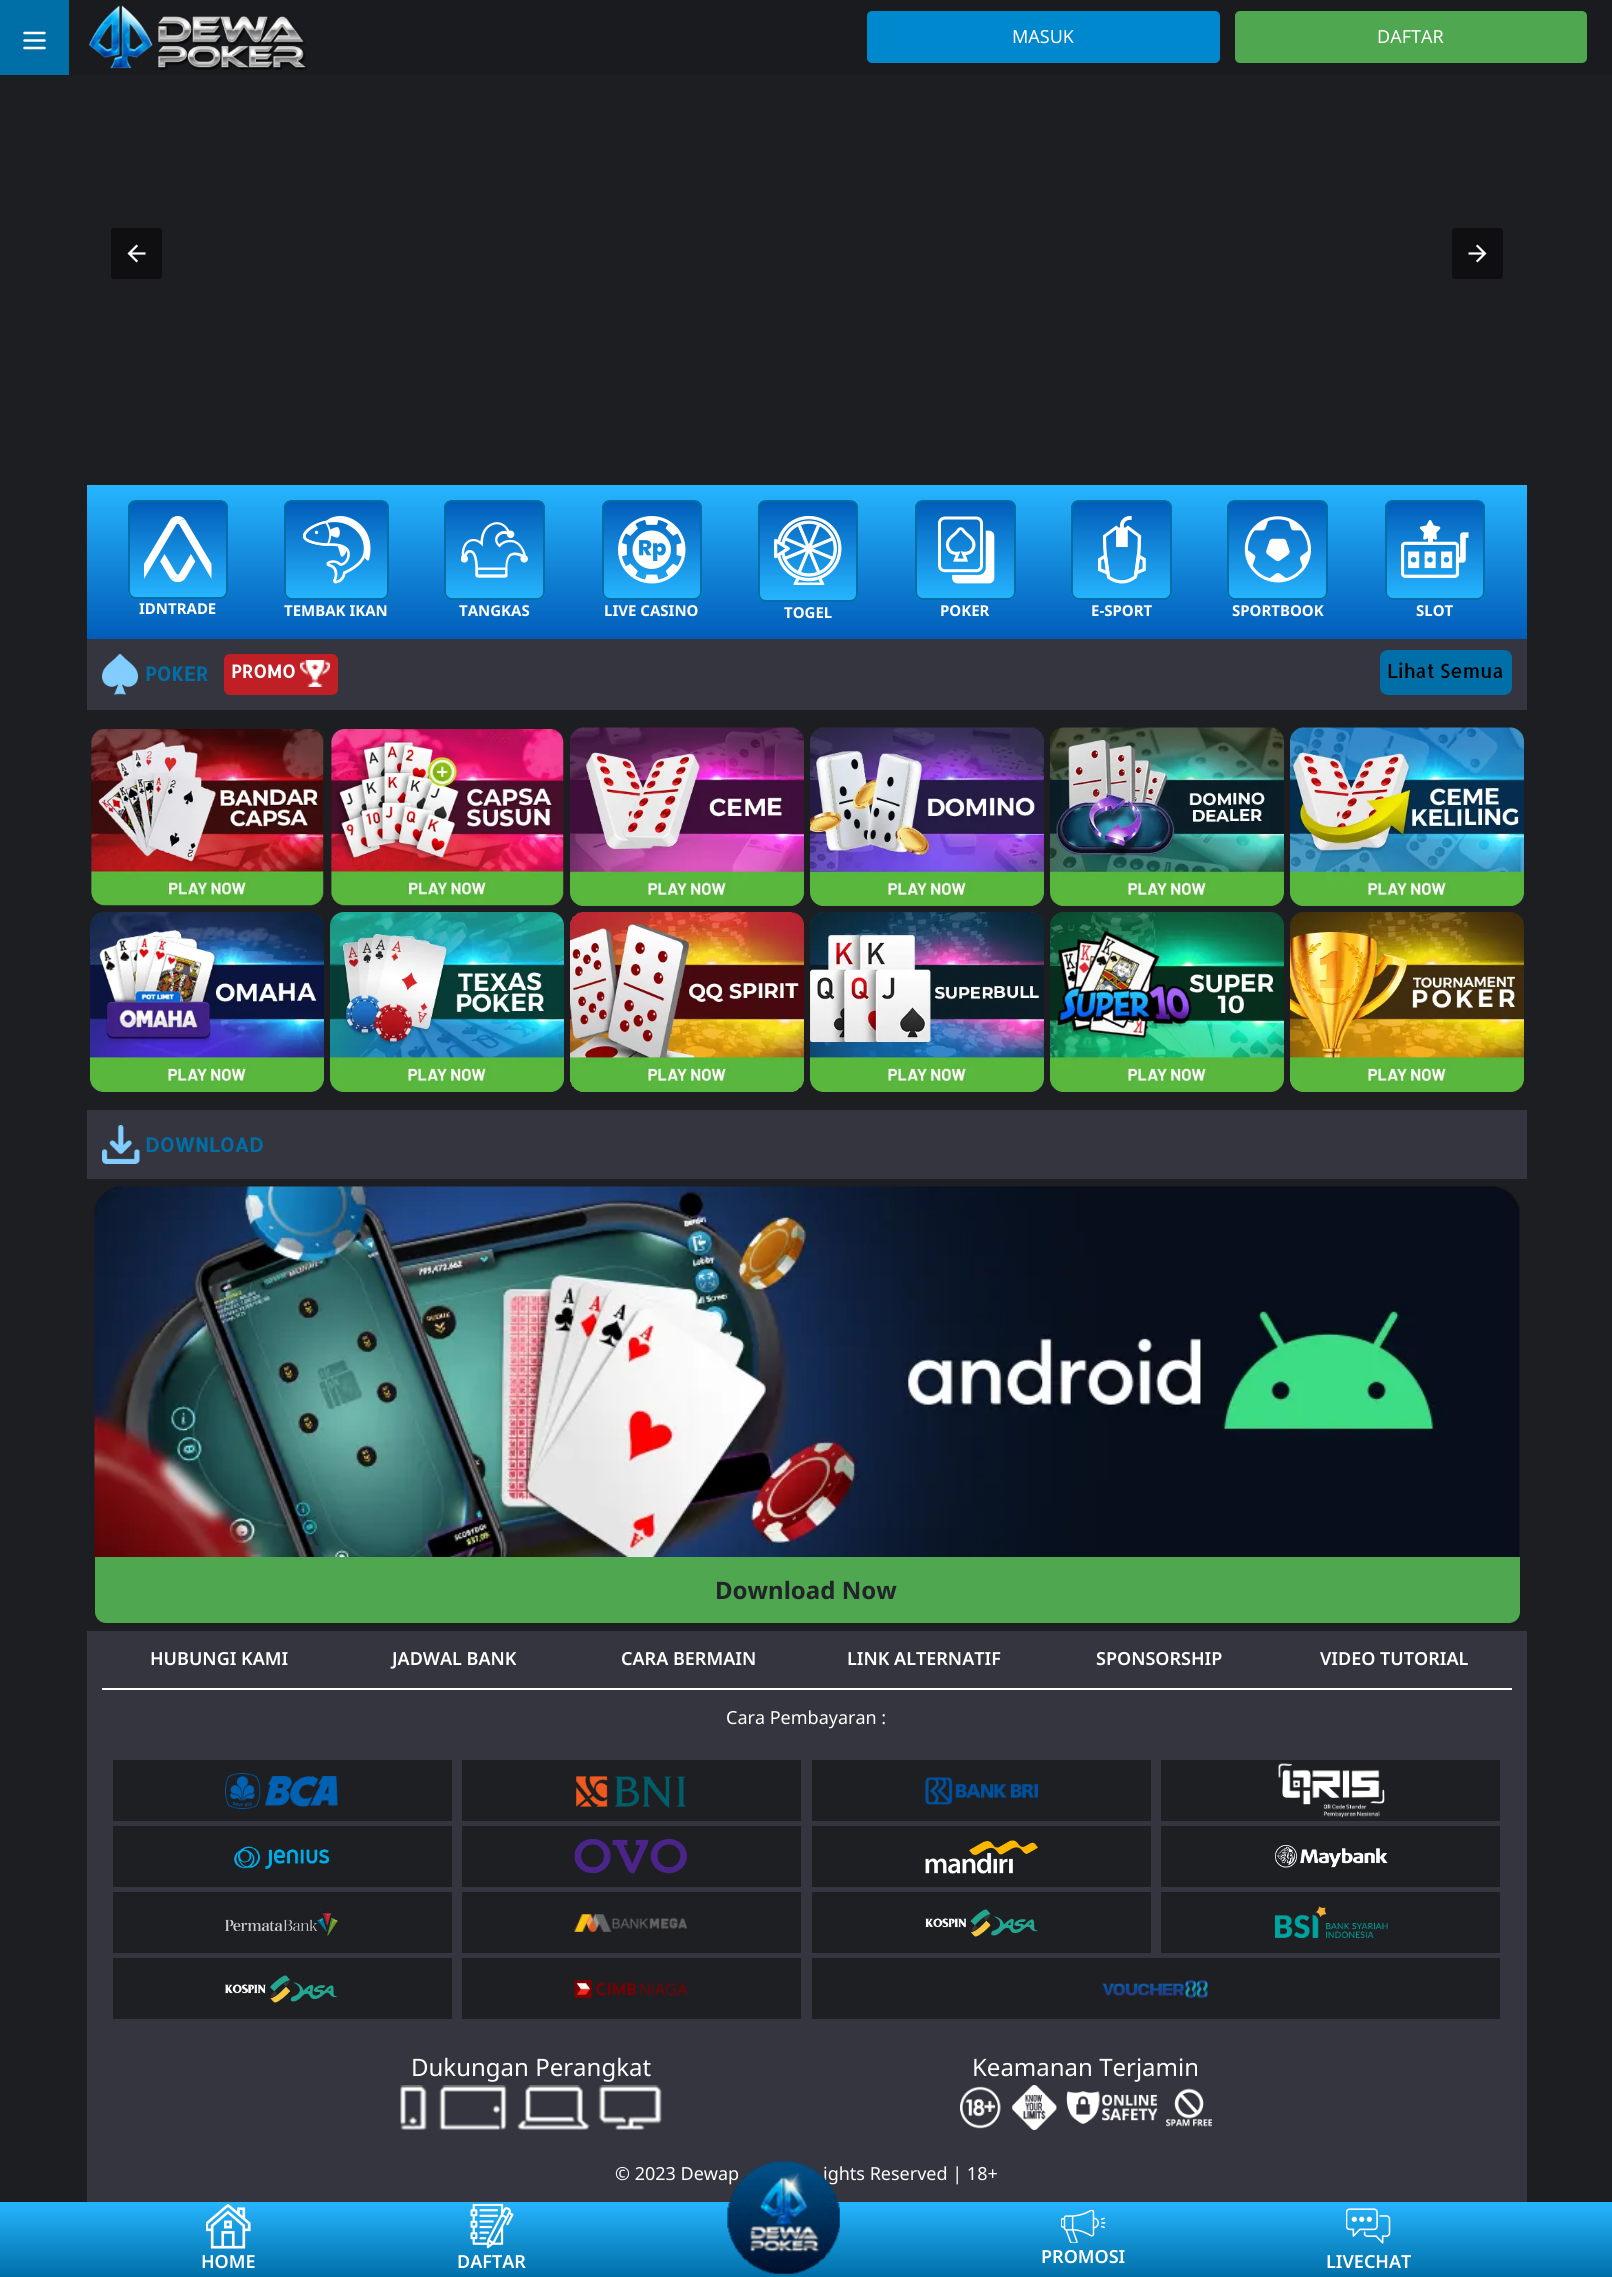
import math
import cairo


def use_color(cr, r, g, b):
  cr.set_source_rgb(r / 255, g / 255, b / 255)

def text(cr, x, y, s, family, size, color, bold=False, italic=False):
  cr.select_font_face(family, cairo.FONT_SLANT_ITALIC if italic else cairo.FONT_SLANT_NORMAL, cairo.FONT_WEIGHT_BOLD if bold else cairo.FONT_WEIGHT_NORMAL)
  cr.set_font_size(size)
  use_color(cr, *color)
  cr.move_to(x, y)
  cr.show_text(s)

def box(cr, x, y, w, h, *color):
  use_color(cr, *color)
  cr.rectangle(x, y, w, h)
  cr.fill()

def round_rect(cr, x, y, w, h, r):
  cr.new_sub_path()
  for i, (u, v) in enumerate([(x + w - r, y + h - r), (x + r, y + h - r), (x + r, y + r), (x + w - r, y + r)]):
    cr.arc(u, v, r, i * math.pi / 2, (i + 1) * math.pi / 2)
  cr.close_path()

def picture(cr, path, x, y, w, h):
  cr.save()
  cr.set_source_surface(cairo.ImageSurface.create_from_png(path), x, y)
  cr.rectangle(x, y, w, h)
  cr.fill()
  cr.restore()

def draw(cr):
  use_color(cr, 29, 30, 33)
  cr.paint()
  box(cr, 69, 0, 1543, 75, 26, 27, 30)
  box(cr, 0, 0, 69, 75, 0, 111, 168)
  cr.new_path()
  cr.move_to(24.5, 33)
  cr.line_to(44.5, 33)
  cr.move_to(24.5, 40.5)
  cr.line_to(44.5, 40.5)
  cr.move_to(24.5, 48)
  cr.line_to(44.5, 48)
  use_color(cr, 255, 255, 255)
  cr.set_line_width(2.5)
  cr.set_line_cap(cairo.LINE_CAP_ROUND)
  cr.set_line_join(cairo.LINE_JOIN_ROUND)
  cr.stroke()
  picture(cr, "img_01.png", 89, 5, 218, 65)
  use_color(cr, 0, 136, 207)
  round_rect(cr, 867, 11, 353, 52, 5)
  cr.fill()
  use_color(cr, 79, 167, 79)
  round_rect(cr, 1235, 11, 352, 52, 5)
  cr.fill()
  use_color(cr, 15, 15, 17)
  round_rect(cr, 111, 228, 51, 51, 3)
  cr.fill()
  picture(cr, "img_02.png", 127, 244, 19, 19)
  round_rect(cr, 1452, 228, 51, 51, 3)
  cr.fill()
  picture(cr, "img_03.png", 1468, 244, 19, 19)
  gradient = cairo.LinearGradient(807, 639, 807, 485)
  gradient.add_color_stop_rgba(0, 0.004, 0.361, 0.722, 1)
  gradient.add_color_stop_rgba(1, 0.149, 0.71, 0.996, 1)
  cr.set_source(gradient)
  cr.rectangle(87, 485, 1440, 154)
  cr.fill()
  cr.save()
  round_rect(cr, 128, 500, 100, 99, 8)
  cr.clip()
  gradient = cairo.LinearGradient(178, 501, 178, 597)
  gradient.add_color_stop_rgba(0, 0.004, 0.361, 0.722, 1)
  gradient.add_color_stop_rgba(1, 0.149, 0.71, 0.996, 1)
  cr.set_source(gradient)
  cr.rectangle(128, 501, 100, 96)
  cr.fill()
  cr.restore()
  round_rect(cr, 129, 501, 98, 97, 7)
  use_color(cr, 0, 111, 168)
  cr.set_line_width(2)
  cr.set_line_cap(cairo.LINE_CAP_BUTT)
  cr.set_line_join(cairo.LINE_JOIN_MITER)
  cr.stroke()
  picture(cr, "img_04.png", 144, 516, 68, 66)
  cr.save()
  round_rect(cr, 284, 500, 105, 100, 8)
  cr.clip()
  gradient = cairo.LinearGradient(336, 501, 336, 599)
  gradient.add_color_stop_rgba(0, 0.004, 0.361, 0.722, 1)
  gradient.add_color_stop_rgba(1, 0.149, 0.71, 0.996, 1)
  cr.set_source(gradient)
  cr.rectangle(284, 501, 105, 98)
  cr.fill()
  cr.restore()
  round_rect(cr, 285, 501, 103, 98, 7)
  cr.stroke()
  picture(cr, "img_05.png", 303, 516, 68, 68)
  cr.save()
  round_rect(cr, 444, 500, 101, 100, 8)
  cr.clip()
  gradient = cairo.LinearGradient(494, 501, 494, 599)
  gradient.add_color_stop_rgba(0, 0.004, 0.361, 0.722, 1)
  gradient.add_color_stop_rgba(1, 0.149, 0.71, 0.996, 1)
  cr.set_source(gradient)
  cr.rectangle(444, 501, 101, 98)
  cr.fill()
  cr.restore()
  round_rect(cr, 445, 501, 99, 98, 7)
  cr.stroke()
  picture(cr, "img_06.png", 461, 522, 67, 56)
  cr.save()
  round_rect(cr, 602, 500, 100, 100, 8)
  cr.clip()
  gradient = cairo.LinearGradient(652, 501, 652, 599)
  gradient.add_color_stop_rgba(0, 0.004, 0.361, 0.722, 1)
  gradient.add_color_stop_rgba(1, 0.149, 0.71, 0.996, 1)
  cr.set_source(gradient)
  cr.rectangle(602, 501, 100, 98)
  cr.fill()
  cr.restore()
  round_rect(cr, 603, 501, 98, 98, 7)
  cr.stroke()
  picture(cr, "img_07.png", 618, 516, 68, 68)
  cr.save()
  round_rect(cr, 758, 500, 100, 102, 8)
  cr.clip()
  gradient = cairo.LinearGradient(808, 501, 808, 600)
  gradient.add_color_stop_rgba(0, 0.004, 0.361, 0.722, 1)
  gradient.add_color_stop_rgba(1, 0.149, 0.71, 0.996, 1)
  cr.set_source(gradient)
  cr.rectangle(758, 501, 100, 99)
  cr.fill()
  cr.restore()
  round_rect(cr, 759, 501, 98, 100, 7)
  cr.stroke()
  picture(cr, "img_08.png", 774, 516, 68, 69)
  cr.save()
  round_rect(cr, 915, 500, 101, 100, 8)
  cr.clip()
  gradient = cairo.LinearGradient(965, 501, 965, 599)
  gradient.add_color_stop_rgba(0, 0.004, 0.361, 0.722, 1)
  gradient.add_color_stop_rgba(1, 0.149, 0.71, 0.996, 1)
  cr.set_source(gradient)
  cr.rectangle(915, 501, 101, 98)
  cr.fill()
  cr.restore()
  round_rect(cr, 916, 501, 99, 98, 7)
  cr.stroke()
  picture(cr, "img_09.png", 938, 516, 57, 68)
  cr.save()
  round_rect(cr, 1071, 500, 101, 100, 8)
  cr.clip()
  gradient = cairo.LinearGradient(1121, 501, 1121, 599)
  gradient.add_color_stop_rgba(0, 0.004, 0.361, 0.722, 1)
  gradient.add_color_stop_rgba(1, 0.149, 0.71, 0.996, 1)
  cr.set_source(gradient)
  cr.rectangle(1071, 501, 101, 98)
  cr.fill()
  cr.restore()
  round_rect(cr, 1072, 501, 99, 98, 7)
  cr.stroke()
  picture(cr, "img_10.png", 1098, 516, 48, 68)
  cr.save()
  round_rect(cr, 1227, 500, 101, 100, 8)
  cr.clip()
  gradient = cairo.LinearGradient(1277, 501, 1277, 599)
  gradient.add_color_stop_rgba(0, 0.004, 0.361, 0.722, 1)
  gradient.add_color_stop_rgba(1, 0.149, 0.71, 0.996, 1)
  cr.set_source(gradient)
  cr.rectangle(1227, 501, 101, 98)
  cr.fill()
  cr.restore()
  round_rect(cr, 1228, 501, 99, 98, 7)
  cr.stroke()
  picture(cr, "img_11.png", 1244, 516, 67, 67)
  cr.save()
  round_rect(cr, 1385, 500, 100, 100, 8)
  cr.clip()
  gradient = cairo.LinearGradient(1435, 501, 1435, 599)
  gradient.add_color_stop_rgba(0, 0.004, 0.361, 0.722, 1)
  gradient.add_color_stop_rgba(1, 0.149, 0.71, 0.996, 1)
  cr.set_source(gradient)
  cr.rectangle(1385, 501, 100, 98)
  cr.fill()
  cr.restore()
  round_rect(cr, 1386, 501, 98, 98, 7)
  cr.stroke()
  picture(cr, "img_12.png", 1401, 520, 68, 58)
  box(cr, 87, 639, 1440, 71, 53, 53, 63)
  picture(cr, "img_13.png", 102, 654, 36, 41)
  use_color(cr, 192, 31, 37)
  round_rect(cr, 224, 654, 114, 41, 6)
  cr.fill()
  picture(cr, "img_14.png", 300, 660, 30, 27)
  use_color(cr, 0, 111, 168)
  round_rect(cr, 1380, 650, 132, 45, 8)
  cr.fill()
  picture(cr, "img_15.png", 91, 729, 233, 177)
  picture(cr, "img_16.png", 331, 729, 233, 177)
  picture(cr, "img_17.png", 570, 727, 234, 179)
  picture(cr, "img_18.png", 810, 727, 234, 179)
  picture(cr, "img_19.png", 1050, 727, 234, 179)
  picture(cr, "img_20.png", 1290, 727, 234, 179)
  picture(cr, "img_21.png", 90, 912, 234, 180)
  picture(cr, "img_22.png", 330, 912, 234, 180)
  picture(cr, "img_23.png", 570, 912, 234, 180)
  picture(cr, "img_24.png", 810, 912, 234, 180)
  picture(cr, "img_25.png", 1050, 912, 234, 180)
  picture(cr, "img_26.png", 1290, 912, 234, 180)
  box(cr, 87, 1110, 1440, 69, 53, 53, 63)
  picture(cr, "img_27.png", 102, 1125, 38, 39)
  picture(cr, "img_28.png", 94, 1186, 1426, 371)
  use_color(cr, 79, 167, 79)
  cr.new_path()
  cr.move_to(95, 1557)
  cr.line_to(1520, 1557)
  cr.line_to(1520, 1612)
  cr.curve_to(1520, 1618, 1515, 1623, 1509, 1623)
  cr.line_to(106, 1623)
  cr.curve_to(100, 1623, 95, 1618, 95, 1612)
  cr.close_path()
  cr.fill()
  box(cr, 87, 1631, 1440, 571, 53, 53, 63)
  box(cr, 102, 1688, 1410, 2, 255, 255, 255)
  box(cr, 113, 1760, 339, 61, 30, 31, 35)
  picture(cr, "img_29.png", 225, 1773, 113, 36)
  box(cr, 462, 1760, 339, 61, 30, 31, 35)
  picture(cr, "img_30.png", 576, 1776, 110, 32)
  box(cr, 812, 1760, 339, 61, 30, 31, 35)
  picture(cr, "img_31.png", 925, 1777, 113, 28)
  box(cr, 1161, 1760, 339, 61, 30, 31, 35)
  picture(cr, "img_32.png", 1278, 1763, 107, 55)
  box(cr, 113, 1826, 339, 61, 30, 31, 35)
  picture(cr, "img_33.png", 234, 1846, 96, 23)
  box(cr, 462, 1826, 339, 61, 30, 31, 35)
  picture(cr, "img_34.png", 574, 1839, 113, 35)
  box(cr, 812, 1826, 339, 61, 30, 31, 35)
  picture(cr, "img_35.png", 925, 1840, 113, 34)
  box(cr, 1161, 1826, 339, 61, 30, 31, 35)
  picture(cr, "img_36.png", 1275, 1845, 113, 23)
  box(cr, 113, 1892, 339, 61, 30, 31, 35)
  picture(cr, "img_37.png", 225, 1909, 113, 27)
  box(cr, 462, 1892, 339, 61, 30, 31, 35)
  picture(cr, "img_38.png", 574, 1914, 113, 18)
  box(cr, 812, 1892, 339, 61, 30, 31, 35)
  picture(cr, "img_39.png", 925, 1909, 113, 28)
  box(cr, 1161, 1892, 339, 61, 30, 31, 35)
  picture(cr, "img_40.png", 1275, 1906, 113, 32)
  box(cr, 113, 1958, 339, 61, 30, 31, 35)
  picture(cr, "img_41.png", 225, 1975, 113, 28)
  box(cr, 462, 1958, 339, 61, 30, 31, 35)
  picture(cr, "img_42.png", 574, 1980, 113, 18)
  box(cr, 812, 1958, 688, 61, 30, 31, 35)
  picture(cr, "img_43.png", 1102, 1980, 106, 18)
  picture(cr, "img_44.png", 400, 2085, 262, 45)
  picture(cr, "img_45.png", 960, 2085, 252, 45)
  gradient = cairo.LinearGradient(806, 2202, 806, 2277)
  gradient.add_color_stop_rgba(0, 0.149, 0.71, 0.996, 1)
  gradient.add_color_stop_rgba(1, 0, 0.435, 0.659, 1)
  cr.set_source(gradient)
  cr.rectangle(0, 2202, 1612, 75)
  cr.fill()
  picture(cr, "img_46.png", 206, 2204, 45, 45)
  picture(cr, "img_47.png", 470, 2204, 44, 45)
  picture(cr, "img_49.png", 1061, 2210, 45, 33)
  picture(cr, "img_50.png", 1346, 2208, 45, 36)
  text(cr, 1012, 43, "MASUK", "Noto Sans", 18, (255, 255, 255))
  text(cr, 1377, 43, "DAFTAR", "Noto Sans", 18, (255, 255, 255))
  text(cr, 139, 614, "IDNTRADE", "Noto Sans", 15, (255, 255, 255), bold=True)
  text(cr, 284, 616, "TEMBAK IKAN", "Noto Sans", 15, (255, 255, 255), bold=True)
  text(cr, 459, 616, "TANGKAS", "Noto Sans", 15, (255, 255, 255), bold=True)
  text(cr, 604, 616, "LIVE CASINO", "Noto Sans", 15, (255, 255, 255), bold=True)
  text(cr, 784, 618, "TOGEL", "Noto Sans", 15, (255, 255, 255), bold=True)
  text(cr, 940, 616, "POKER", "Noto Sans", 15, (255, 255, 255), bold=True)
  text(cr, 1091, 616, "E-SPORT", "Noto Sans", 15, (255, 255, 255), bold=True)
  text(cr, 1232, 616, "SPORTBOOK", "Noto Sans", 15, (255, 255, 255), bold=True)
  text(cr, 1416, 616, "SLOT", "Noto Sans", 15, (255, 255, 255), bold=True)
  text(cr, 145, 681, "POKER", "Allerta", 19.5, (0, 111, 168), bold=True)
  text(cr, 231, 678, "PROMO", "Allerta", 18, (255, 255, 255), bold=True)
  text(cr, 1387, 678, "Lihat Semua", "Allerta", 19.5, (0, 0, 0))
  text(cr, 145, 1152, "DOWNLOAD", "Allerta", 19.5, (0, 111, 168), bold=True)
  text(cr, 715, 1599, "Download Now", "Noto Sans", 24, (33, 37, 41), bold=True)
  text(cr, 150, 1665, "HUBUNGI KAMI", "Noto Sans SemiBold", 18, (255, 255, 255))
  text(cr, 392, 1665, "JADWAL BANK", "Noto Sans SemiBold", 18, (255, 255, 255))
  text(cr, 621, 1665, "CARA BERMAIN", "Noto Sans SemiBold", 18, (255, 255, 255))
  text(cr, 847, 1665, "LINK ALTERNATIF", "Noto Sans SemiBold", 18, (255, 255, 255))
  text(cr, 1096, 1665, "SPONSORSHIP", "Noto Sans SemiBold", 18, (255, 255, 255))
  text(cr, 1320, 1665, "VIDEO TUTORIAL", "Noto Sans SemiBold", 18, (255, 255, 255))
  text(cr, 726, 1724, "Cara Pembayaran :", "Noto Sans", 18, (255, 255, 255))
  text(cr, 411, 2076, "Dukungan Perangkat", "Noto Sans", 24, (255, 255, 255))
  text(cr, 972, 2076, "Keamanan Terjamin", "Noto Sans", 24, (255, 255, 255))
  text(cr, 615, 2180, "© 2023 Dewap", "Noto Sans", 18, (255, 255, 255))
  text(cr, 823, 2180, "ights Reserved | 18+", "Noto Sans", 18, (255, 255, 255))
  text(cr, 201, 2268, "HOME", "Noto Sans SemiBold", 18, (255, 255, 255))
  text(cr, 457, 2268, "DAFTAR", "Noto Sans SemiBold", 18, (255, 255, 255))
  picture(cr, "img_48.png", 727, 2161, 113, 113)
  text(cr, 1041, 2263, "PROMOSI", "Noto Sans SemiBold", 18, (255, 255, 255))
  text(cr, 1326, 2268, "LIVECHAT", "Noto Sans SemiBold", 18, (255, 255, 255))


surface = cairo.ImageSurface(cairo.FORMAT_RGB24, 1612, 2277)
cr = cairo.Context(surface)
options = cairo.FontOptions()
options.set_hint_metrics(cairo.HINT_METRICS_OFF)
options.set_hint_style(cairo.HINT_STYLE_NONE)
cr.set_font_options(options)
cr.set_miter_limit(4)
draw(cr)
surface.write_to_png("out.png")
